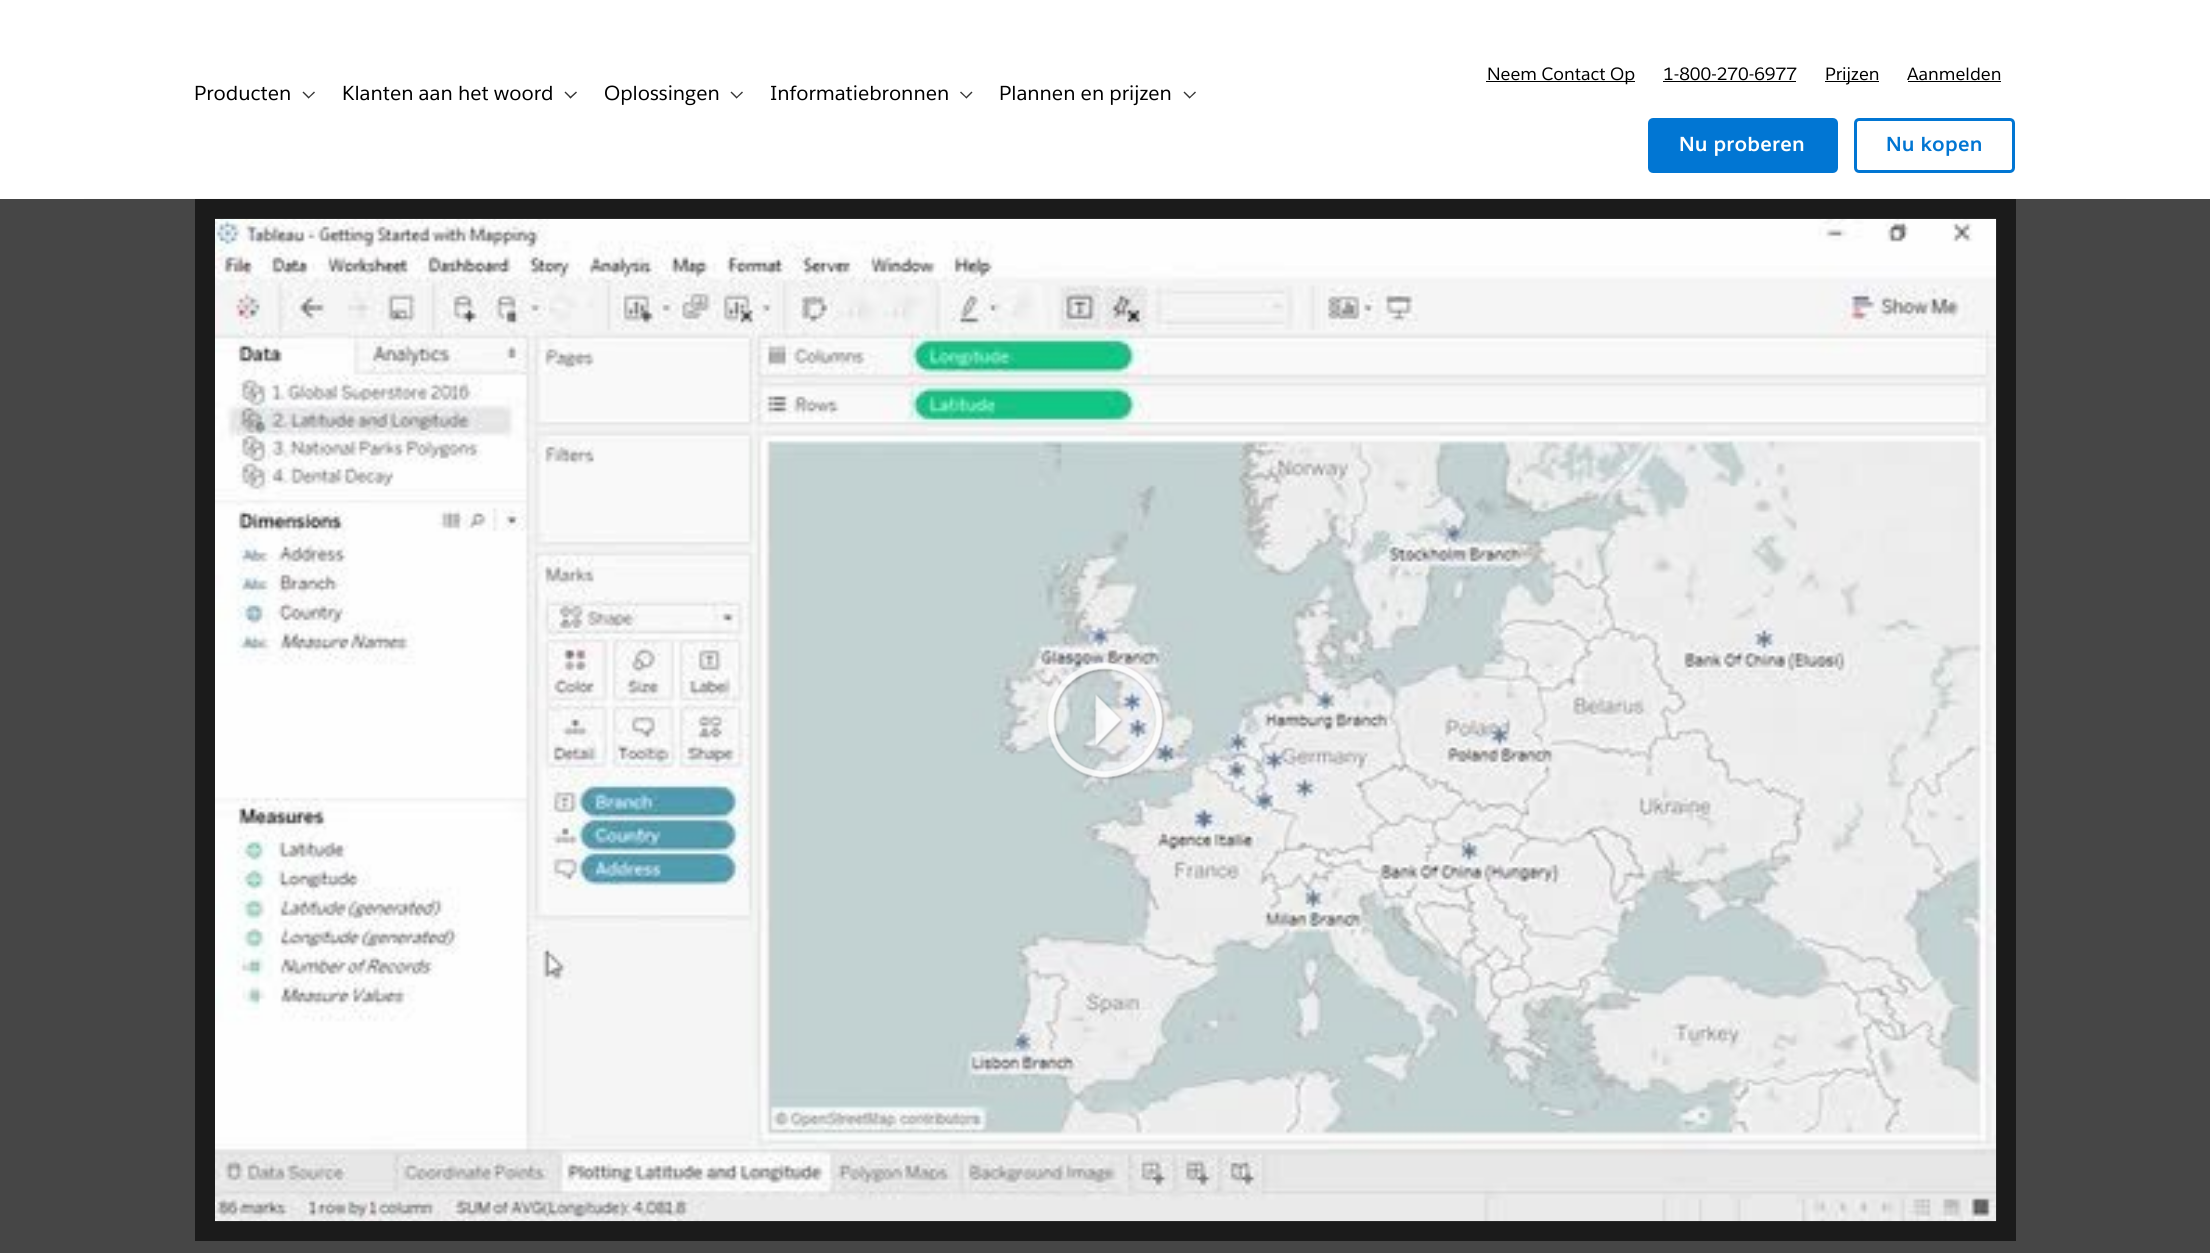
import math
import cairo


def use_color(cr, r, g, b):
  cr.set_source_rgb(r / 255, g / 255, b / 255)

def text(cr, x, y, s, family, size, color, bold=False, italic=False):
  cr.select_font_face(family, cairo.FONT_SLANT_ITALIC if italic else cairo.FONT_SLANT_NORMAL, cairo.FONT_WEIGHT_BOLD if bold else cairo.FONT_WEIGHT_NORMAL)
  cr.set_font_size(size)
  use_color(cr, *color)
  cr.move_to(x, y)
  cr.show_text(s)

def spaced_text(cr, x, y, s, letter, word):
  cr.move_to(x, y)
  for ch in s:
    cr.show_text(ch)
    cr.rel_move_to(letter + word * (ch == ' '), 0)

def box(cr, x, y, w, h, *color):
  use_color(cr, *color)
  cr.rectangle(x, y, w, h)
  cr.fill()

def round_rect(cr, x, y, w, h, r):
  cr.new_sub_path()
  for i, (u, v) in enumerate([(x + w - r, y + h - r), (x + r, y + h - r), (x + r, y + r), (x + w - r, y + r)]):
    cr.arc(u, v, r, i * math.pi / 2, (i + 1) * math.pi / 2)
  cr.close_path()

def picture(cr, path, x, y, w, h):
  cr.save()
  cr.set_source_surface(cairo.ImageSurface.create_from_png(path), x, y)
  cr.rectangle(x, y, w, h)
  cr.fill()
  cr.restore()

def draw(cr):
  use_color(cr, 255, 255, 255)
  cr.paint()
  use_color(cr, 51, 51, 51)
  cr.new_path()
  cr.move_to(314, 91.5)
  cr.line_to(315, 92.5)
  cr.line_to(308.5, 98.5)
  cr.line_to(308, 97.5)
  cr.close_path()
  cr.fill()
  cr.new_path()
  cr.move_to(303.5, 91.5)
  cr.line_to(309.5, 97.5)
  cr.line_to(308.5, 98.5)
  cr.line_to(302.5, 92.5)
  cr.close_path()
  cr.fill()
  cr.new_path()
  cr.move_to(576, 91.5)
  cr.line_to(577, 92.5)
  cr.line_to(570.5, 98.5)
  cr.line_to(569.5, 97.5)
  cr.close_path()
  cr.fill()
  cr.new_path()
  cr.move_to(565.5, 91.5)
  cr.line_to(571.5, 97.5)
  cr.line_to(570.5, 98.5)
  cr.line_to(564.5, 92.5)
  cr.close_path()
  cr.fill()
  cr.new_path()
  cr.move_to(742, 91.5)
  cr.line_to(743, 92.5)
  cr.line_to(736.5, 98.5)
  cr.line_to(736, 97.5)
  cr.close_path()
  cr.fill()
  cr.new_path()
  cr.move_to(731.5, 91.5)
  cr.line_to(737.5, 97.5)
  cr.line_to(736.5, 98.5)
  cr.line_to(730.5, 92.5)
  cr.close_path()
  cr.fill()
  cr.new_path()
  cr.move_to(971.5, 91.5)
  cr.line_to(972.5, 92.5)
  cr.line_to(966.5, 98.5)
  cr.line_to(965.5, 97.5)
  cr.close_path()
  cr.fill()
  cr.new_path()
  cr.move_to(961, 91.5)
  cr.line_to(967, 97.5)
  cr.line_to(966.5, 98.5)
  cr.line_to(960, 92.5)
  cr.close_path()
  cr.fill()
  cr.new_path()
  cr.move_to(1195, 91.5)
  cr.line_to(1196, 92.5)
  cr.line_to(1189.5, 98.5)
  cr.line_to(1189, 97.5)
  cr.close_path()
  cr.fill()
  cr.new_path()
  cr.move_to(1184.5, 91.5)
  cr.line_to(1190.5, 97.5)
  cr.line_to(1189.5, 98.5)
  cr.line_to(1183.5, 92.5)
  cr.close_path()
  cr.fill()
  box(cr, 1486, 81, 149, 1, 0, 0, 0)
  box(cr, 1663, 81, 133, 1, 0, 0, 0)
  box(cr, 1825, 81, 54, 1, 0, 0, 0)
  box(cr, 1908, 81, 93, 1, 0, 0, 0)
  use_color(cr, 1, 118, 211)
  round_rect(cr, 1649.5, 119.5, 187, 52, 3.5)
  cr.fill_preserve()
  cr.set_line_width(3)
  cr.stroke()
  round_rect(cr, 1855.5, 119.5, 158, 52, 3.5)
  cr.stroke()
  gradient = cairo.LinearGradient(0, 198, 2210, 198)
  gradient.add_color_stop_rgba(0, 1, 1, 1, 1)
  gradient.add_color_stop_rgba(0.5, 0.871, 0.871, 0.871, 1)
  gradient.add_color_stop_rgba(1, 1, 1, 1, 1)
  cr.set_source(gradient)
  cr.rectangle(84, 198, 2042, 1)
  cr.fill()
  box(cr, 0, 199, 2210, 1054, 70, 70, 70)
  box(cr, 195, 199, 1821, 1042, 27, 27, 27)
  picture(cr, "img_01.png", 215, 218, 1782, 1004)
  picture(cr, "img_02.png", 1046, 661, 120, 120)
  text(cr, 194, 100, "Producten", "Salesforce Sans", 20, (0, 0, 0))
  text(cr, 342, 100, "Klanten aan het woord", "Salesforce Sans", 20, (0, 0, 0))
  text(cr, 604, 100, "Oplossingen", "Salesforce Sans", 20, (0, 0, 0))
  text(cr, 770, 100, "Informatiebronnen", "Salesforce Sans", 20, (0, 0, 0))
  text(cr, 999, 100, "Plannen en prijzen", "Salesforce Sans", 20, (0, 0, 0))
  text(cr, 1487, 80, "Neem Contact Op", "Salesforce Sans", 17.5, (0, 0, 0))
  text(cr, 1663, 80, "1-800-270-6977", "Salesforce Sans", 17.5, (0, 0, 0))
  text(cr, 1825, 80, "Prijzen", "Salesforce Sans", 17.5, (0, 0, 0))
  text(cr, 1907, 80, "Aanmelden", "Salesforce Sans", 17.5, (0, 0, 0))
  cr.select_font_face("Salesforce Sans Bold", cairo.FONT_SLANT_NORMAL, cairo.FONT_WEIGHT_BOLD)
  cr.set_font_size(20)
  use_color(cr, 255, 255, 255)
  spaced_text(cr, 1679, 151, "Nu proberen", 0.25, 0)
  use_color(cr, 1, 118, 211)
  spaced_text(cr, 1886, 151, "Nu kopen", 0.25, 0)


surface = cairo.ImageSurface(cairo.FORMAT_RGB24, 2210, 1253)
cr = cairo.Context(surface)
options = cairo.FontOptions()
options.set_hint_metrics(cairo.HINT_METRICS_OFF)
options.set_hint_style(cairo.HINT_STYLE_NONE)
cr.set_font_options(options)
cr.set_miter_limit(4)
draw(cr)
surface.write_to_png("out.png")
